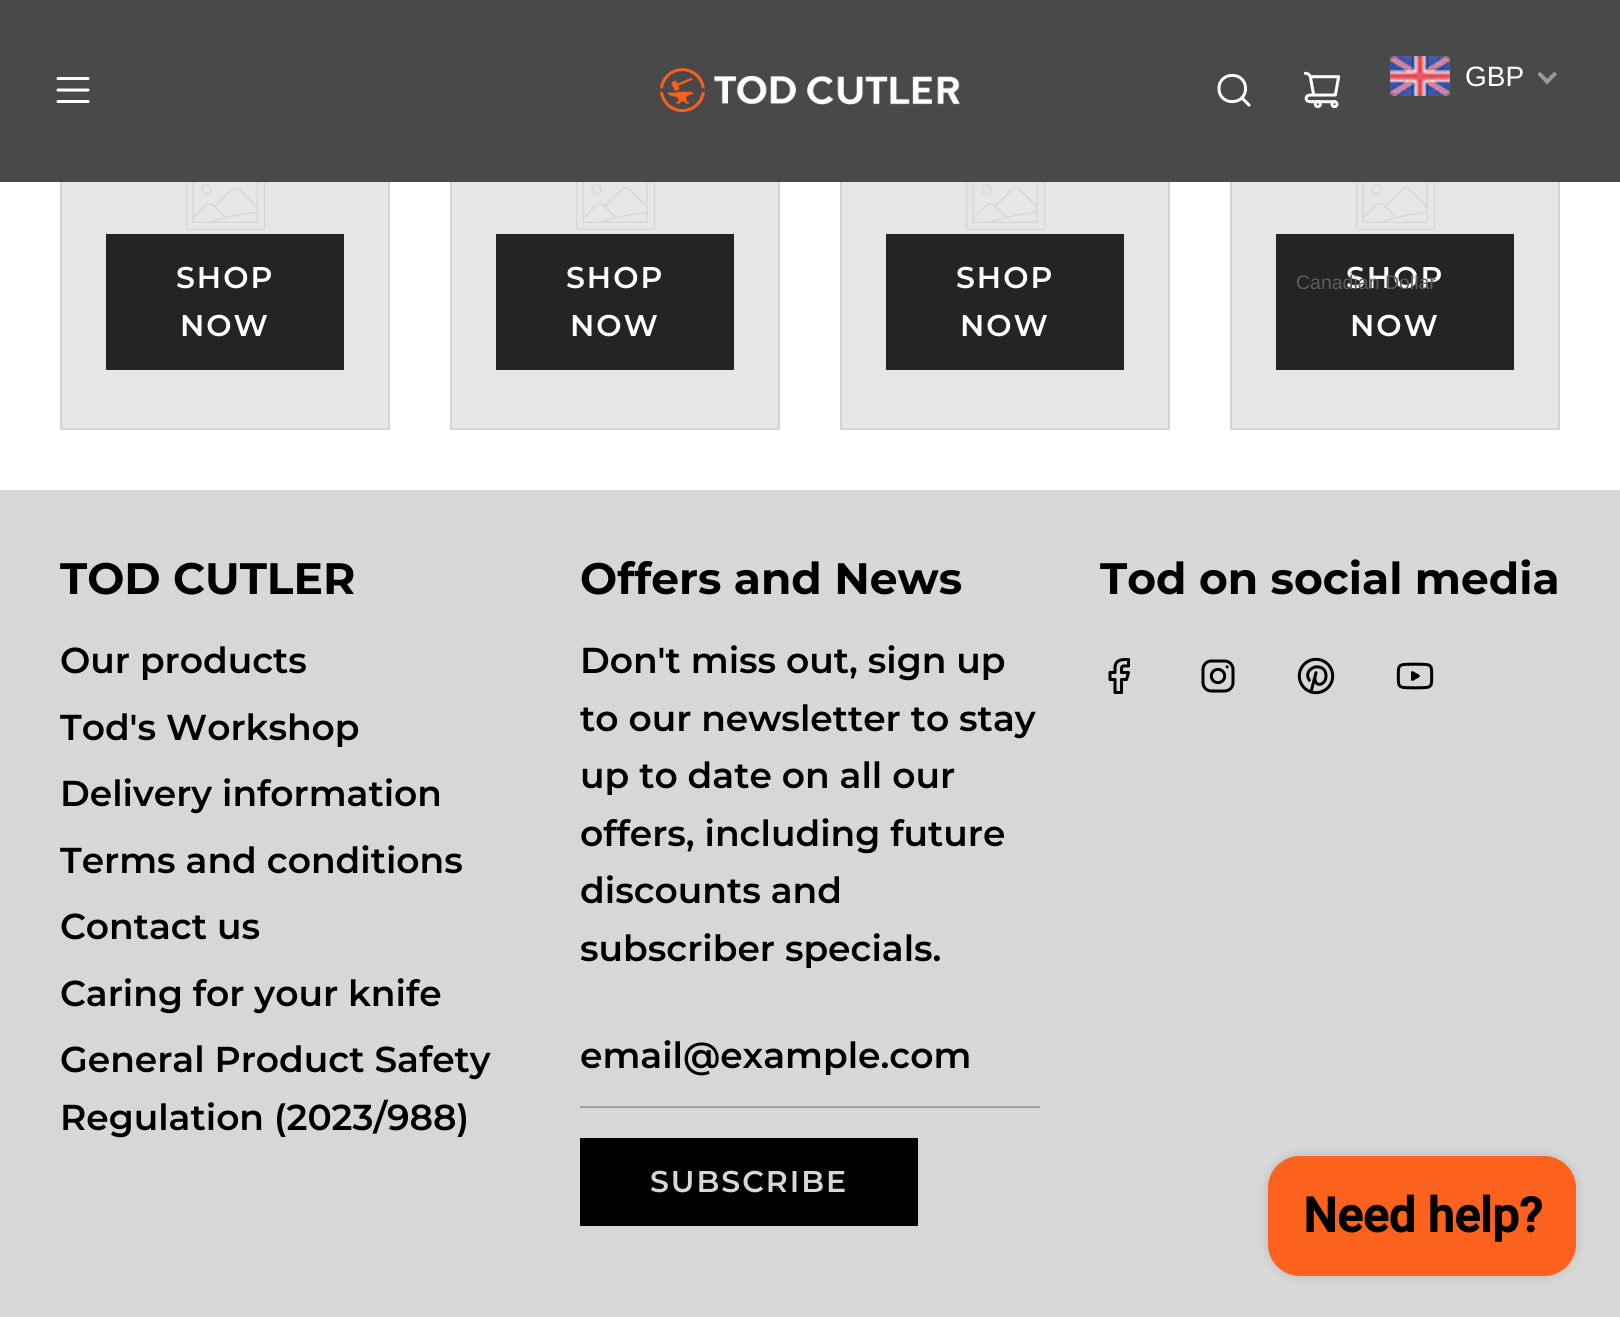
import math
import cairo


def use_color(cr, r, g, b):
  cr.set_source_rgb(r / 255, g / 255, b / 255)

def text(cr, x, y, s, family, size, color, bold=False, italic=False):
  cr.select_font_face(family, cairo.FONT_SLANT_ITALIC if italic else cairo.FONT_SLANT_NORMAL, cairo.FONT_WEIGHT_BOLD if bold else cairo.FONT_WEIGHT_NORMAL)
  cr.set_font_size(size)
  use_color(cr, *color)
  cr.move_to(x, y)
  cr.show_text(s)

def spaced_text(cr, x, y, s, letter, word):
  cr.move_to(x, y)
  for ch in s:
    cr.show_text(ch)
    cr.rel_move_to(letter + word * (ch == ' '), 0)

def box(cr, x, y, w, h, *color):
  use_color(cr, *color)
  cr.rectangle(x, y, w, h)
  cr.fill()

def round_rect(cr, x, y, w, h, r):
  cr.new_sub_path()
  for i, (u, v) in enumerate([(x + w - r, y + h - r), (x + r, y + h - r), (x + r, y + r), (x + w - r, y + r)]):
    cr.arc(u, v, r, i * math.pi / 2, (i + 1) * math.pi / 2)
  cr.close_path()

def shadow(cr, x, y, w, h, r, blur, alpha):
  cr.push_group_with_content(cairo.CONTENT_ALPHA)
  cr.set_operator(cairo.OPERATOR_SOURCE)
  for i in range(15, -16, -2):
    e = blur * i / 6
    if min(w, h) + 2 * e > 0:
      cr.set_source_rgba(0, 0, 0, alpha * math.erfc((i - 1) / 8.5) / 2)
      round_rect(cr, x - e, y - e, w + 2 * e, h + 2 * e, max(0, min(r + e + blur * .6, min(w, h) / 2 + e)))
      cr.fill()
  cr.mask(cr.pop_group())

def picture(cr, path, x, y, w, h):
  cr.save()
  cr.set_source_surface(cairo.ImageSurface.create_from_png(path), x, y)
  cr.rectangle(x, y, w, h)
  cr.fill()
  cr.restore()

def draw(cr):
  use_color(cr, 255, 255, 255)
  cr.paint()
  box(cr, 62, 182, 326, 246, 230, 229, 231)
  cr.rectangle(61, -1, 328, 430)
  use_color(cr, 212, 211, 212)
  cr.stroke()
  box(cr, 452, 182, 326, 246, 230, 229, 231)
  cr.rectangle(451, -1, 328, 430)
  use_color(cr, 212, 211, 212)
  cr.stroke()
  box(cr, 842, 182, 326, 246, 230, 229, 231)
  cr.rectangle(841, -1, 328, 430)
  use_color(cr, 212, 211, 212)
  cr.stroke()
  box(cr, 1232, 182, 326, 246, 230, 229, 231)
  cr.rectangle(1231, -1, 328, 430)
  use_color(cr, 212, 211, 212)
  cr.stroke()
  box(cr, 0, 0, 1620, 182, 73, 73, 73)
  cr.new_path()
  cr.move_to(58, 78.5)
  cr.line_to(88, 78.5)
  cr.move_to(58, 90)
  cr.line_to(88, 90)
  cr.move_to(58, 101.5)
  cr.line_to(88, 101.5)
  use_color(cr, 255, 255, 254)
  cr.set_line_width(3)
  cr.set_line_cap(cairo.LINE_CAP_ROUND)
  cr.set_line_join(cairo.LINE_JOIN_ROUND)
  cr.stroke()
  picture(cr, "img_01.png", 660, 68, 300, 44)
  picture(cr, "img_02.png", 1390, 56, 60, 40)
  use_color(cr, 153, 153, 153)
  cr.new_path()
  cr.move_to(1554.5, 71.5)
  cr.line_to(1557, 74.5)
  cr.line_to(1547, 84.5)
  cr.line_to(1544.5, 81.5)
  cr.close_path()
  cr.fill()
  cr.new_path()
  cr.move_to(1540, 71.5)
  cr.line_to(1550, 81.5)
  cr.line_to(1547, 84.5)
  cr.line_to(1537.5, 74.5)
  cr.close_path()
  cr.fill()
  cr.new_path()
  cr.move_to(1242.5, 98.5)
  cr.line_to(1249, 105)
  cr.move_to(1219, 88.5)
  cr.curve_to(1219, 106, 1245.5, 106, 1245.5, 88.5)
  cr.curve_to(1245.5, 71, 1219, 71, 1219, 88.5)
  cr.close_path()
  use_color(cr, 255, 255, 254)
  cr.stroke()
  picture(cr, "img_03.png", 1303, 71, 38, 38)
  picture(cr, "img_04.png", 186, 182, 79, 48)
  box(cr, 106, 234, 238, 136, 36, 36, 36)
  picture(cr, "img_04.png", 576, 182, 79, 48)
  box(cr, 496, 234, 238, 136, 36, 36, 36)
  picture(cr, "img_04.png", 966, 182, 79, 48)
  box(cr, 886, 234, 238, 136, 36, 36, 36)
  picture(cr, "img_04.png", 1356, 182, 79, 48)
  box(cr, 1276, 234, 238, 136, 36, 36, 36)
  box(cr, 0, 490, 1620, 827, 215, 215, 215)
  box(cr, 580, 1106, 460, 2, 161, 161, 162)
  box(cr, 580, 1138, 338, 88, 0, 0, 1)
  cr.new_path()
  cr.move_to(1128.5, 659.5)
  cr.curve_to(1122.5, 659.5, 1116, 659, 1115, 667)
  cr.line_to(1115, 672.5)
  cr.line_to(1110, 672.5)
  cr.line_to(1110, 679.5)
  cr.line_to(1115, 679.5)
  cr.line_to(1115, 692.5)
  cr.line_to(1121.5, 692.5)
  cr.line_to(1121.5, 679.5)
  cr.line_to(1126.5, 679.5)
  cr.line_to(1128.5, 672.5)
  cr.line_to(1121.5, 672.5)
  cr.curve_to(1121.5, 665, 1121, 666, 1128.5, 666)
  cr.close_path()
  cr.stroke()
  picture(cr, "img_05.png", 1201, 659, 34, 34)
  picture(cr, "img_06.png", 1297, 657, 38, 38)
  picture(cr, "img_07.png", 1396, 662, 38, 28)
  use_color(cr, 0, 0, 0)
  shadow(cr, 1268, 1156, 308, 120, 32, 5, 0.15)
  use_color(cr, 252, 97, 29)
  round_rect(cr, 1268, 1156, 308, 120, 32)
  cr.fill()
  text(cr, 1465, 86, "GBP", "Liberation Sans", 28, (255, 255, 255))
  cr.select_font_face("Montserrat SemiBold")
  cr.set_font_size(30)
  spaced_text(cr, 176, 288, "SHOP", 2, 0)
  spaced_text(cr, 180, 336, "NOW", 2, 0)
  spaced_text(cr, 566, 288, "SHOP", 2, 0)
  spaced_text(cr, 570, 336, "NOW", 2, 0)
  spaced_text(cr, 956, 288, "SHOP", 2, 0)
  spaced_text(cr, 960, 336, "NOW", 2, 0)
  spaced_text(cr, 1346, 288, "SHOP", 2, 0)
  text(cr, 1296, 289, "Canadian Dollar", "Liberation Sans", 19.5, (93, 93, 93))
  cr.select_font_face("Montserrat SemiBold")
  cr.set_font_size(30)
  use_color(cr, 255, 255, 255)
  spaced_text(cr, 1350, 336, "NOW", 2, 0)
  text(cr, 60, 594, "TOD CUTLER", "Montserrat", 44, (0, 0, 1), bold=True)
  text(cr, 60, 673, "Our products", "Montserrat SemiBold", 36, (0, 0, 1))
  text(cr, 60, 740, "Tod's Workshop", "Montserrat SemiBold", 36, (0, 0, 1))
  text(cr, 60, 806, "Delivery information", "Montserrat SemiBold", 36, (0, 0, 1))
  text(cr, 60, 873, "Terms and conditions", "Montserrat SemiBold", 36, (0, 0, 1))
  text(cr, 60, 939, "Contact us", "Montserrat SemiBold", 36, (0, 0, 1))
  text(cr, 60, 1006, "Caring for your knife", "Montserrat SemiBold", 36, (0, 0, 1))
  text(cr, 60, 1072, "General Product Safety", "Montserrat SemiBold", 36, (0, 0, 1))
  text(cr, 60, 1130, "Regulation (2023/988)", "Montserrat SemiBold", 36, (0, 0, 1))
  text(cr, 580, 594, "Offers and News", "Montserrat", 44, (0, 0, 1), bold=True)
  text(cr, 580, 673, "Don't miss out, sign up", "Montserrat SemiBold", 36, (0, 0, 1))
  text(cr, 580, 731, "to our newsletter to stay", "Montserrat SemiBold", 36, (0, 0, 1))
  text(cr, 580, 788, "up to date on all our", "Montserrat SemiBold", 36, (0, 0, 1))
  text(cr, 580, 846, "offers, including future", "Montserrat SemiBold", 36, (0, 0, 1))
  text(cr, 580, 903, "discounts and", "Montserrat SemiBold", 36, (0, 0, 1))
  text(cr, 580, 961, "subscriber specials.", "Montserrat SemiBold", 36, (0, 0, 1))
  text(cr, 580, 1068, "email@example.com", "Montserrat SemiBold", 36, (0, 0, 1))
  cr.set_font_size(30)
  use_color(cr, 215, 215, 215)
  spaced_text(cr, 650, 1192, "SUBSCRIBE", 2, 0)
  text(cr, 1100, 594, "Tod on social media", "Montserrat", 44, (0, 0, 1), bold=True)
  text(cr, 1303, 1232, "Need help?", "Roboto", 48, (0, 0, 1), bold=True)


surface = cairo.ImageSurface(cairo.FORMAT_RGB24, 1620, 1317)
cr = cairo.Context(surface)
options = cairo.FontOptions()
options.set_hint_metrics(cairo.HINT_METRICS_OFF)
options.set_hint_style(cairo.HINT_STYLE_NONE)
cr.set_font_options(options)
cr.set_miter_limit(4)
draw(cr)
surface.write_to_png("out.png")
